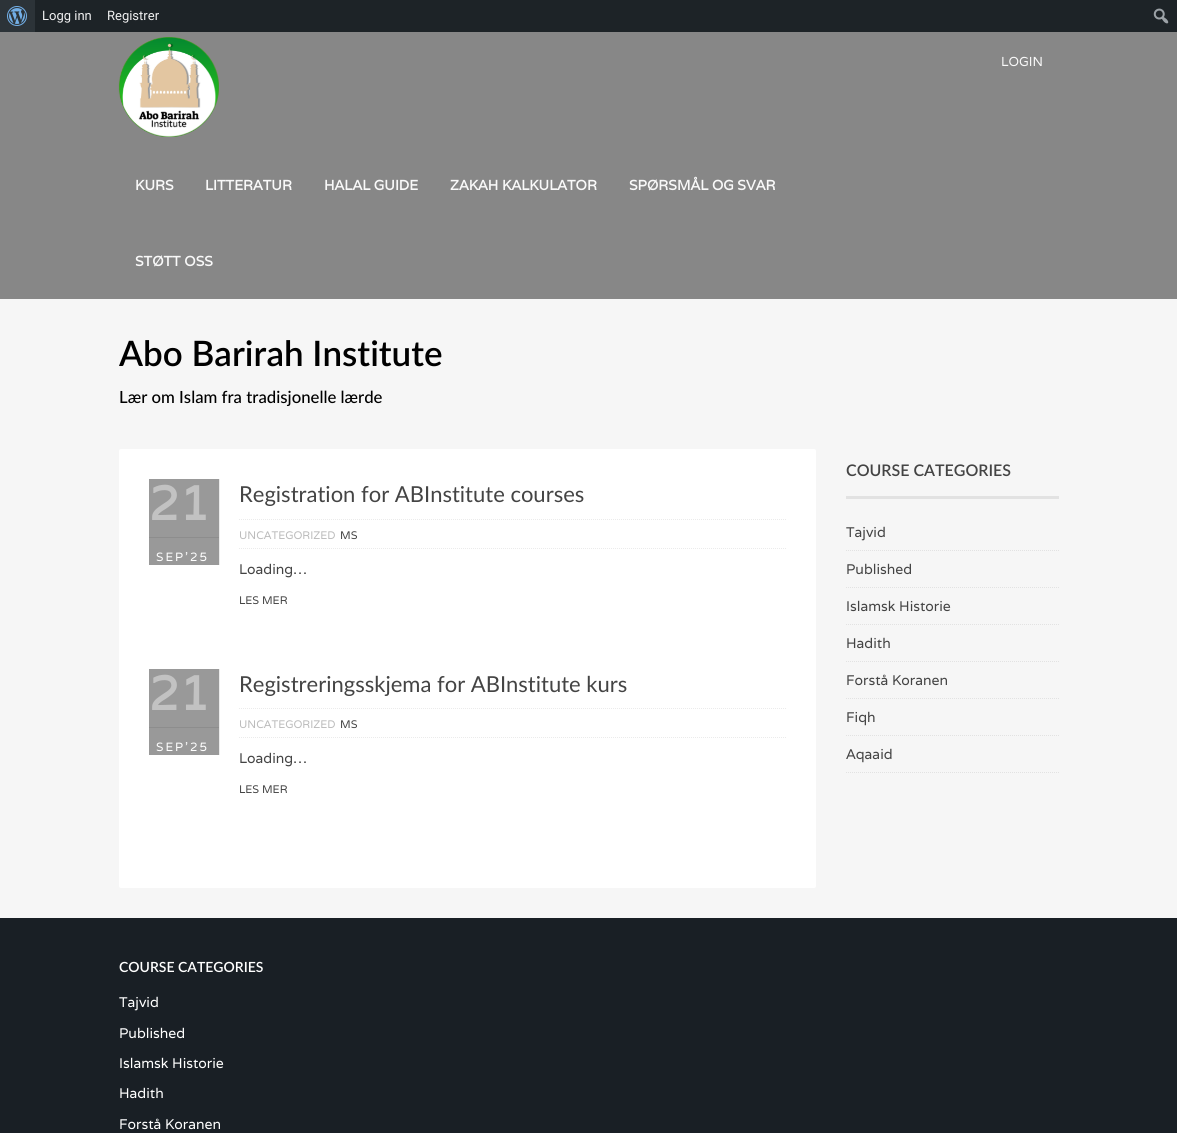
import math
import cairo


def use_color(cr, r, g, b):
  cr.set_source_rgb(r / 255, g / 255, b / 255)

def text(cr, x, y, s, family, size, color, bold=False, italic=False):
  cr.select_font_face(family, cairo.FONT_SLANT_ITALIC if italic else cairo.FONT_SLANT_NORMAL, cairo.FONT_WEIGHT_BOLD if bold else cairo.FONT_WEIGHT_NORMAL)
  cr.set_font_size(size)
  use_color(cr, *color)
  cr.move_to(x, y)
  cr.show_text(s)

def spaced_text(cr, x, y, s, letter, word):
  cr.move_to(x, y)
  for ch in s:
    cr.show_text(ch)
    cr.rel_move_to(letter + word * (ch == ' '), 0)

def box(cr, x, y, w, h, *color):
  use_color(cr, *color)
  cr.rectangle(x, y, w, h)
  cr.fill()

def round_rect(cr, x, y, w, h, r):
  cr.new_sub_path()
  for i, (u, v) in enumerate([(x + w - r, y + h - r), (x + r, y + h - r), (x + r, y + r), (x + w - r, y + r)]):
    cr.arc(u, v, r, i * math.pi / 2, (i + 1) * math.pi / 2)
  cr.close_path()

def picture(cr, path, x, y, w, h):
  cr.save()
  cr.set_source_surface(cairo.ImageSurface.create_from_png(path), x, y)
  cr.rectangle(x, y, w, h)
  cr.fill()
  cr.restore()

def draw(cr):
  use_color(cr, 246, 246, 246)
  cr.paint()
  box(cr, 35, 0, 1142, 32, 29, 35, 39)
  box(cr, 0, 0, 35, 32, 44, 51, 56)
  picture(cr, "img_01.png", 7, 6, 20, 20)
  picture(cr, "img_02.png", 1153, 8, 16, 16)
  box(cr, 0, 32, 1177, 267, 135, 135, 135)
  picture(cr, "img_03.png", 118, 37, 101, 100)
  use_color(cr, 255, 255, 255)
  round_rect(cr, 119, 449, 697, 439, 2)
  cr.fill()
  box(cr, 219, 479, 1, 86, 235, 235, 235)
  box(cr, 149, 479, 70, 86, 153, 153, 153)
  box(cr, 149, 537, 70, 1, 141, 141, 141)
  cr.new_path()
  cr.move_to(239, 519.5)
  cr.line_to(786, 519.5)
  use_color(cr, 235, 235, 235)
  cr.set_line_width(1)
  cr.set_dash([1, 1])
  cr.stroke()
  cr.new_path()
  cr.move_to(239, 548.5)
  cr.line_to(786, 548.5)
  cr.stroke()
  box(cr, 219, 669, 1, 86, 235, 235, 235)
  box(cr, 149, 669, 70, 86, 153, 153, 153)
  box(cr, 149, 727, 70, 1, 141, 141, 141)
  cr.new_path()
  cr.move_to(239, 708.5)
  cr.line_to(786, 708.5)
  use_color(cr, 235, 235, 235)
  cr.stroke()
  cr.new_path()
  cr.move_to(239, 737.5)
  cr.line_to(786, 737.5)
  cr.stroke()
  box(cr, 846, 496, 213, 3, 226, 226, 226)
  cr.new_path()
  cr.move_to(846, 550.5)
  cr.line_to(1059, 550.5)
  cr.stroke()
  cr.new_path()
  cr.move_to(846, 587.5)
  cr.line_to(1059, 587.5)
  cr.stroke()
  cr.new_path()
  cr.move_to(846, 624.5)
  cr.line_to(1059, 624.5)
  cr.stroke()
  cr.new_path()
  cr.move_to(846, 661.5)
  cr.line_to(1059, 661.5)
  cr.stroke()
  cr.new_path()
  cr.move_to(846, 698.5)
  cr.line_to(1059, 698.5)
  cr.stroke()
  cr.new_path()
  cr.move_to(846, 735.5)
  cr.line_to(1059, 735.5)
  cr.stroke()
  cr.new_path()
  cr.move_to(846, 772.5)
  cr.line_to(1059, 772.5)
  cr.stroke()
  box(cr, 0, 918, 1177, 215, 25, 31, 37)
  text(cr, 42, 20, "Logg inn", "Roboto", 13, (240, 240, 241))
  text(cr, 107, 20, "Registrer", "Roboto", 13, (240, 240, 241))
  text(cr, 1001, 66, "LOGIN", "Varela", 13, (249, 249, 249))
  text(cr, 135, 190, "KURS", "Varela", 14, (249, 249, 249), bold=True)
  text(cr, 205, 190, "LITTERATUR", "Varela", 14, (249, 249, 249), bold=True)
  text(cr, 324, 190, "HALAL GUIDE", "Varela", 14, (249, 249, 249), bold=True)
  text(cr, 450, 190, "ZAKAH KALKULATOR", "Varela", 14, (249, 249, 249), bold=True)
  text(cr, 629, 190, "SPØRSMÅL OG SVAR", "Varela", 14, (249, 249, 249), bold=True)
  text(cr, 135, 266, "STØTT OSS", "Varela", 14, (249, 249, 249), bold=True)
  text(cr, 119, 366, "Abo Barirah Institute", "Lato SemiBold", 35, (0, 0, 0))
  text(cr, 119, 403, "Lær om Islam fra tradisjonelle lærde", "Lato Medium", 16.75, (0, 0, 0))
  text(cr, 149, 520, "21", "Varela", 48, (194, 194, 194), bold=True)
  cr.select_font_face("Varela")
  cr.set_font_size(12)
  use_color(cr, 255, 255, 255)
  spaced_text(cr, 156, 561, "SEP'25", 2, 0)
  text(cr, 239, 502, "Registration for ABInstitute courses", "Lato", 22, (68, 68, 68))
  text(cr, 239, 539, "UNCATEGORIZED", "Varela", 11, (187, 187, 187))
  text(cr, 340, 539, "MS", "Varela", 11, (68, 68, 68))
  text(cr, 239, 574, "Loading…", "Varela", 14, (68, 68, 68))
  text(cr, 239, 604, "LES MER", "Varela", 11, (68, 68, 68))
  text(cr, 149, 710, "21", "Varela", 48, (194, 194, 194), bold=True)
  cr.select_font_face("Varela")
  cr.set_font_size(12)
  use_color(cr, 255, 255, 255)
  spaced_text(cr, 156, 751, "SEP'25", 2, 0)
  text(cr, 239, 692, "Registreringsskjema for ABInstitute kurs", "Lato", 22, (68, 68, 68))
  text(cr, 239, 728, "UNCATEGORIZED", "Varela", 11, (187, 187, 187))
  text(cr, 340, 728, "MS", "Varela", 11, (68, 68, 68))
  text(cr, 239, 763, "Loading…", "Varela", 14, (68, 68, 68))
  text(cr, 239, 793, "LES MER", "Varela", 11, (68, 68, 68))
  text(cr, 846, 476, "COURSE CATEGORIES", "Lato SemiBold", 16, (68, 68, 68))
  text(cr, 846, 537, "Tajvid", "Varela", 14, (68, 68, 68))
  text(cr, 846, 574, "Published", "Varela", 14, (68, 68, 68))
  text(cr, 846, 611, "Islamsk Historie", "Varela", 14, (68, 68, 68))
  text(cr, 846, 648, "Hadith", "Varela", 14, (68, 68, 68))
  text(cr, 846, 685, "Forstå Koranen", "Varela", 14, (68, 68, 68))
  text(cr, 846, 722, "Fiqh", "Varela", 14, (68, 68, 68))
  text(cr, 846, 759, "Aqaaid", "Varela", 14, (68, 68, 68))
  text(cr, 119, 972, "COURSE CATEGORIES", "Lato SemiBold", 14, (255, 255, 255))
  text(cr, 119, 1007, "Tajvid", "Varela", 14, (255, 255, 255))
  text(cr, 119, 1038, "Published", "Varela", 14, (255, 255, 255))
  text(cr, 119, 1068, "Islamsk Historie", "Varela", 14, (255, 255, 255))
  text(cr, 119, 1098, "Hadith", "Varela", 14, (255, 255, 255))
  text(cr, 119, 1129, "Forstå Koranen", "Varela", 14, (255, 255, 255))


surface = cairo.ImageSurface(cairo.FORMAT_RGB24, 1177, 1133)
cr = cairo.Context(surface)
options = cairo.FontOptions()
options.set_hint_metrics(cairo.HINT_METRICS_OFF)
options.set_hint_style(cairo.HINT_STYLE_NONE)
cr.set_font_options(options)
cr.set_miter_limit(4)
draw(cr)
surface.write_to_png("out.png")
